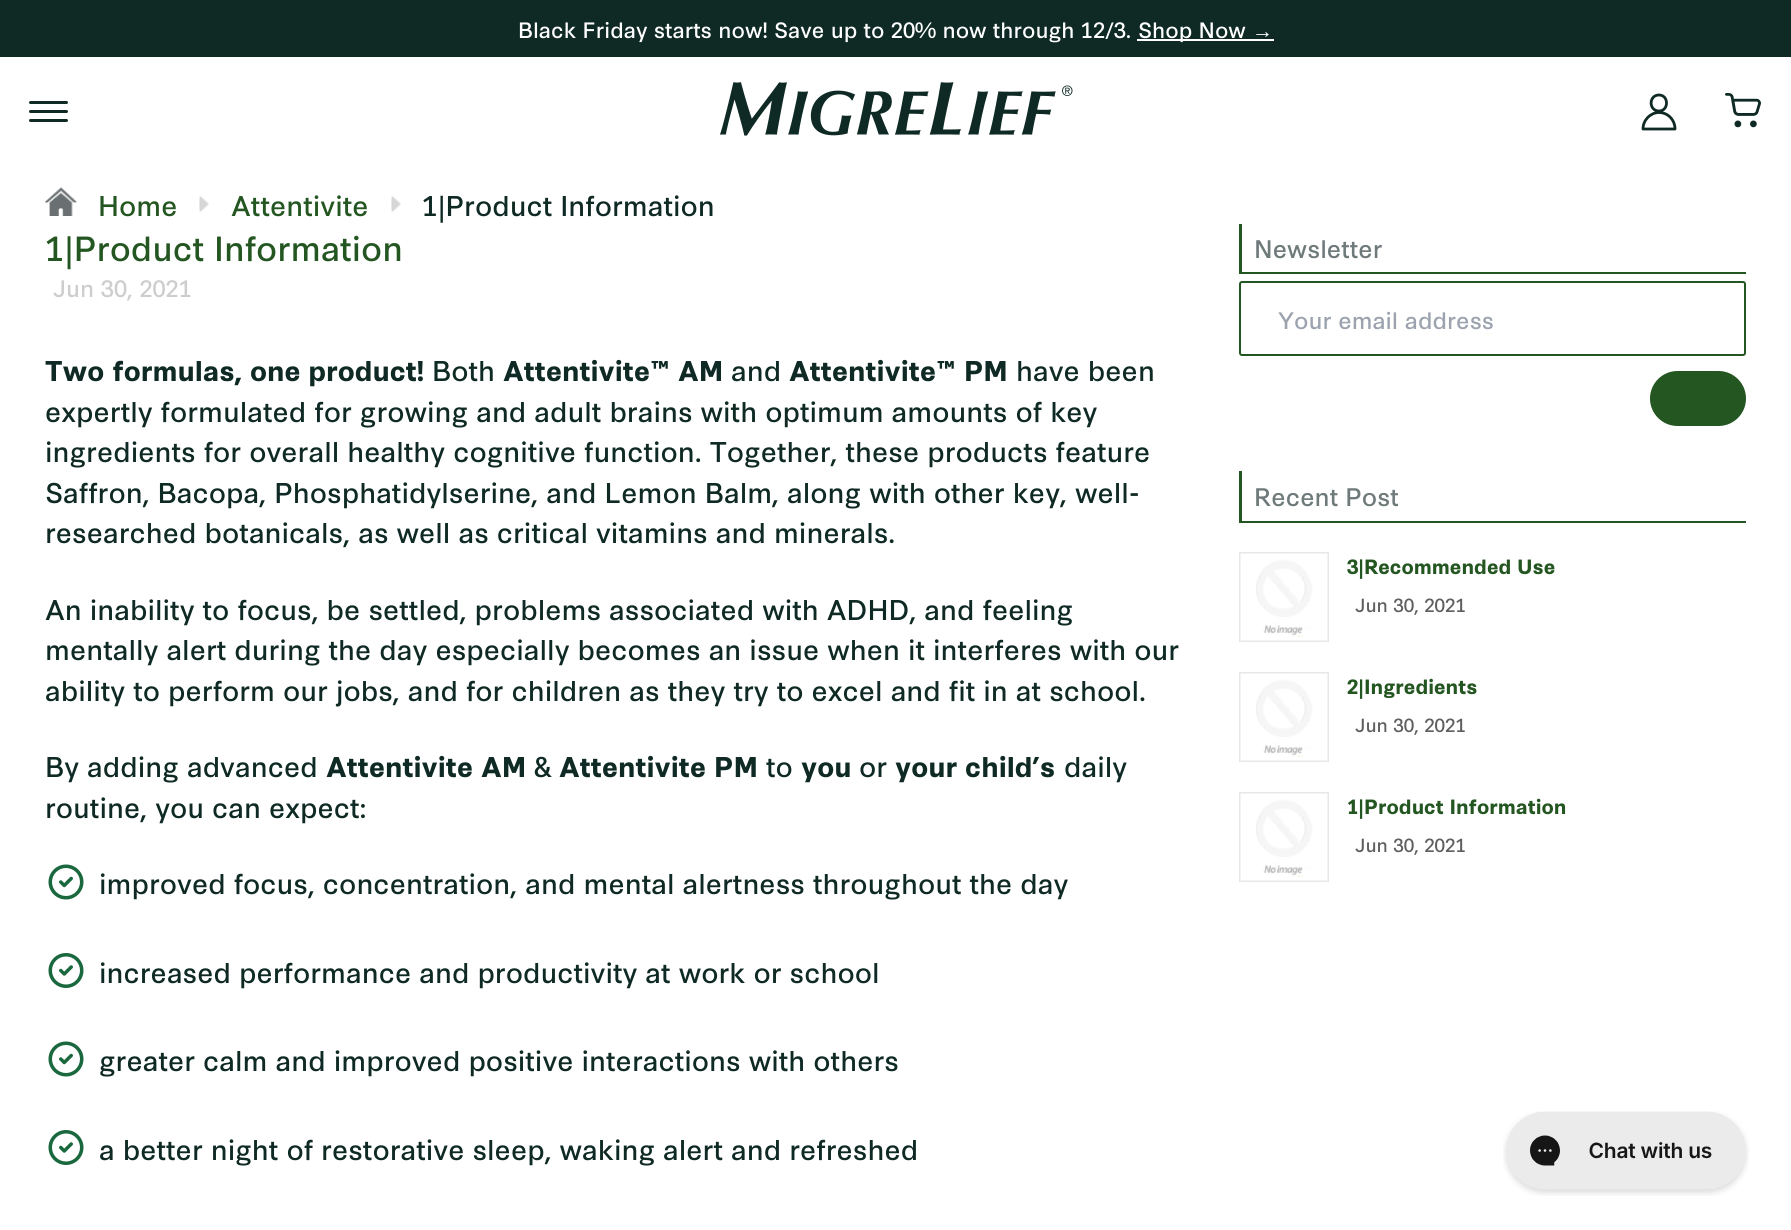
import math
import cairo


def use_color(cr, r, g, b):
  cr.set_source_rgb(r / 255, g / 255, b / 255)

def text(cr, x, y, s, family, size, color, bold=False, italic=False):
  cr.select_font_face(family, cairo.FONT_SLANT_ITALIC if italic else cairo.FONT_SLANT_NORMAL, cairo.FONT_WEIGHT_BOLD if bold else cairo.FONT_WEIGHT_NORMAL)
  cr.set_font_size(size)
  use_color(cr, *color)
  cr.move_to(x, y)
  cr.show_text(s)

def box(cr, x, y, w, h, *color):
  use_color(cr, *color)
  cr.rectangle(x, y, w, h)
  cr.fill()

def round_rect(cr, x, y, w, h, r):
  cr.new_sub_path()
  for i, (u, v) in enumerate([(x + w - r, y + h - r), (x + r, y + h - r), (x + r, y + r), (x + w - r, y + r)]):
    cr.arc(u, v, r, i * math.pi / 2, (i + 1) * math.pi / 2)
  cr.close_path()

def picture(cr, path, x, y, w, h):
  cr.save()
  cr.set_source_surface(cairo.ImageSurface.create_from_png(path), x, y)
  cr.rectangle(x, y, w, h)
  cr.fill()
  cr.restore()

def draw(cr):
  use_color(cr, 255, 255, 255)
  cr.paint()
  box(cr, 0, 0, 1791, 57, 15, 42, 36)
  box(cr, 1137, 39, 137, 2, 255, 255, 255)
  use_color(cr, 15, 42, 36)
  round_rect(cr, 29, 101, 39, 3, 1.5)
  cr.fill()
  round_rect(cr, 29, 110, 39, 3, 1.5)
  cr.fill()
  round_rect(cr, 29, 119, 39, 3, 1.5)
  cr.fill()
  picture(cr, "img_01.png", 720, 82, 353, 54)
  cr.new_path()
  cr.move_to(1675, 129)
  cr.curve_to(1675, 120, 1668, 112.5, 1659, 112.5)
  cr.curve_to(1650.5, 112.5, 1643, 120, 1643, 129)
  cr.close_path()
  cr.move_to(1659, 111)
  cr.curve_to(1669, 111, 1669, 95, 1659, 95)
  cr.curve_to(1648.5, 95, 1648.5, 111, 1659, 111)
  cr.close_path()
  cr.set_line_width(2.8)
  cr.set_line_join(cairo.LINE_JOIN_ROUND)
  cr.stroke()
  picture(cr, "img_02.png", 1725, 93, 36, 35)
  picture(cr, "img_03.png", 45, 187, 32, 29)
  picture(cr, "img_04.png", 199, 196, 10, 16)
  picture(cr, "img_04.png", 391, 196, 10, 16)
  picture(cr, "img_05.png", 48, 864, 36, 36)
  picture(cr, "img_06.png", 48, 953, 36, 35)
  picture(cr, "img_05.png", 48, 1041, 36, 36)
  picture(cr, "img_06.png", 48, 1130, 36, 35)
  box(cr, 1239, 272, 507, 2, 36, 86, 33)
  box(cr, 1239, 224, 3, 49, 36, 86, 33)
  round_rect(cr, 1240, 282, 505, 73, 2)
  cr.set_line_width(2)
  cr.set_line_join(cairo.LINE_JOIN_MITER)
  cr.stroke()
  round_rect(cr, 1650, 371, 96, 55, 27.5)
  cr.fill()
  box(cr, 1239, 521, 507, 2, 36, 86, 33)
  box(cr, 1239, 471, 3, 51, 36, 86, 33)
  cr.rectangle(1240, 553, 88, 88)
  use_color(cr, 231, 231, 231)
  cr.stroke()
  picture(cr, "img_07.png", 1240, 553, 88, 88)
  cr.rectangle(1240, 673, 88, 88)
  cr.stroke()
  picture(cr, "img_07.png", 1240, 673, 88, 88)
  cr.rectangle(1240, 793, 88, 88)
  cr.stroke()
  picture(cr, "img_07.png", 1240, 793, 88, 88)
  picture(cr, "img_08.png", 1503, 1111, 246, 85)
  text(cr, 518, 38, "Black Friday starts now! Save up to 20% now through 12/3.", "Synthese", 21, (255, 255, 255))
  text(cr, 1138, 38, "Shop Now", "Synthese", 21, (255, 255, 255))
  text(cr, 1252, 38, "→", "Liberation Sans", 21, (255, 255, 255))
  text(cr, 98, 216, "Home", "Synthese", 27, (36, 86, 33))
  text(cr, 231, 216, "Attentivite", "Synthese", 27, (36, 86, 33))
  text(cr, 422, 216, "1|Product Information", "Synthese", 27, (15, 42, 36))
  text(cr, 45, 261, "1|Product Information", "Synthese", 33, (36, 86, 33))
  text(cr, 53, 297, "Jun 30, 2021", "Synthese", 22.5, (205, 205, 205))
  text(cr, 45, 381, "Two formulas, one product!", "Synthese", 27, (15, 42, 36), bold=True)
  text(cr, 432, 381, "Both", "Synthese", 27, (15, 42, 36))
  text(cr, 503, 381, "Attentivite™ AM", "Synthese", 27, (15, 42, 36), bold=True)
  text(cr, 731, 381, "and", "Synthese", 27, (15, 42, 36))
  text(cr, 789, 381, "Attentivite™ PM", "Synthese", 27, (15, 42, 36), bold=True)
  text(cr, 1016, 381, "have been", "Synthese", 27, (15, 42, 36))
  text(cr, 45, 422, "expertly formulated for growing and adult brains with optimum amounts of key", "Synthese", 27, (15, 42, 36))
  text(cr, 45, 462, "ingredients for overall healthy cognitive function. Together, these products feature", "Synthese", 27, (15, 42, 36))
  text(cr, 45, 503, "Saffron, Bacopa, Phosphatidylserine, and Lemon Balm, along with other key, well-", "Synthese", 27, (15, 42, 36))
  text(cr, 45, 543, "researched botanicals, as well as critical vitamins and minerals.", "Synthese", 27, (15, 42, 36))
  text(cr, 45, 620, "An inability to focus, be settled, problems associated with ADHD, and feeling", "Synthese", 27, (15, 42, 36))
  text(cr, 45, 660, "mentally alert during the day especially becomes an issue when it interferes with our", "Synthese", 27, (15, 42, 36))
  text(cr, 45, 701, "ability to perform our jobs, and for children as they try to excel and fit in at school.", "Synthese", 27, (15, 42, 36))
  text(cr, 45, 777, "By adding advanced", "Synthese", 27, (15, 42, 36))
  text(cr, 326, 777, "Attentivite AM", "Synthese", 27, (15, 42, 36), bold=True)
  text(cr, 534, 777, "&", "Synthese", 27, (15, 42, 36))
  text(cr, 559, 777, "Attentivite PM", "Synthese", 27, (15, 42, 36), bold=True)
  text(cr, 766, 777, "to", "Synthese", 27, (15, 42, 36))
  text(cr, 801, 777, "you", "Synthese", 27, (15, 42, 36), bold=True)
  text(cr, 859, 777, "or", "Synthese", 27, (15, 42, 36))
  text(cr, 895, 777, "your child’s", "Synthese", 27, (15, 42, 36), bold=True)
  text(cr, 1064, 777, "daily", "Synthese", 27, (15, 42, 36))
  text(cr, 45, 818, "routine, you can expect:", "Synthese", 27, (15, 42, 36))
  text(cr, 99, 894, "improved focus, concentration, and mental alertness throughout the day", "Synthese", 27, (15, 42, 36))
  text(cr, 99, 983, "increased performance and productivity at work or school", "Synthese", 27, (15, 42, 36))
  text(cr, 99, 1071, "greater calm and improved positive interactions with others", "Synthese", 27, (15, 42, 36))
  text(cr, 99, 1160, "a better night of restorative sleep, waking alert and refreshed", "Synthese", 27, (15, 42, 36))
  text(cr, 1254, 258, "Newsletter", "Synthese", 24, (110, 121, 122))
  text(cr, 1278, 329, "Your email address", "Synthese", 22.5, (156, 163, 175))
  text(cr, 1254, 506, "Recent Post", "Synthese", 24, (110, 121, 122))
  text(cr, 1347, 574, "3|Recommended Use", "Synthese", 19.5, (36, 86, 33), bold=True)
  text(cr, 1355, 612, "Jun 30, 2021", "Synthese", 18, (95, 95, 95))
  text(cr, 1347, 694, "2|Ingredients", "Synthese", 19.5, (36, 86, 33), bold=True)
  text(cr, 1355, 732, "Jun 30, 2021", "Synthese", 18, (95, 95, 95))
  text(cr, 1347, 814, "1|Product Information", "Synthese", 19.5, (36, 86, 33), bold=True)
  text(cr, 1355, 852, "Jun 30, 2021", "Synthese", 18, (95, 95, 95))


surface = cairo.ImageSurface(cairo.FORMAT_RGB24, 1791, 1230)
cr = cairo.Context(surface)
options = cairo.FontOptions()
options.set_hint_metrics(cairo.HINT_METRICS_OFF)
options.set_hint_style(cairo.HINT_STYLE_NONE)
cr.set_font_options(options)
cr.set_miter_limit(4)
draw(cr)
surface.write_to_png("out.png")
